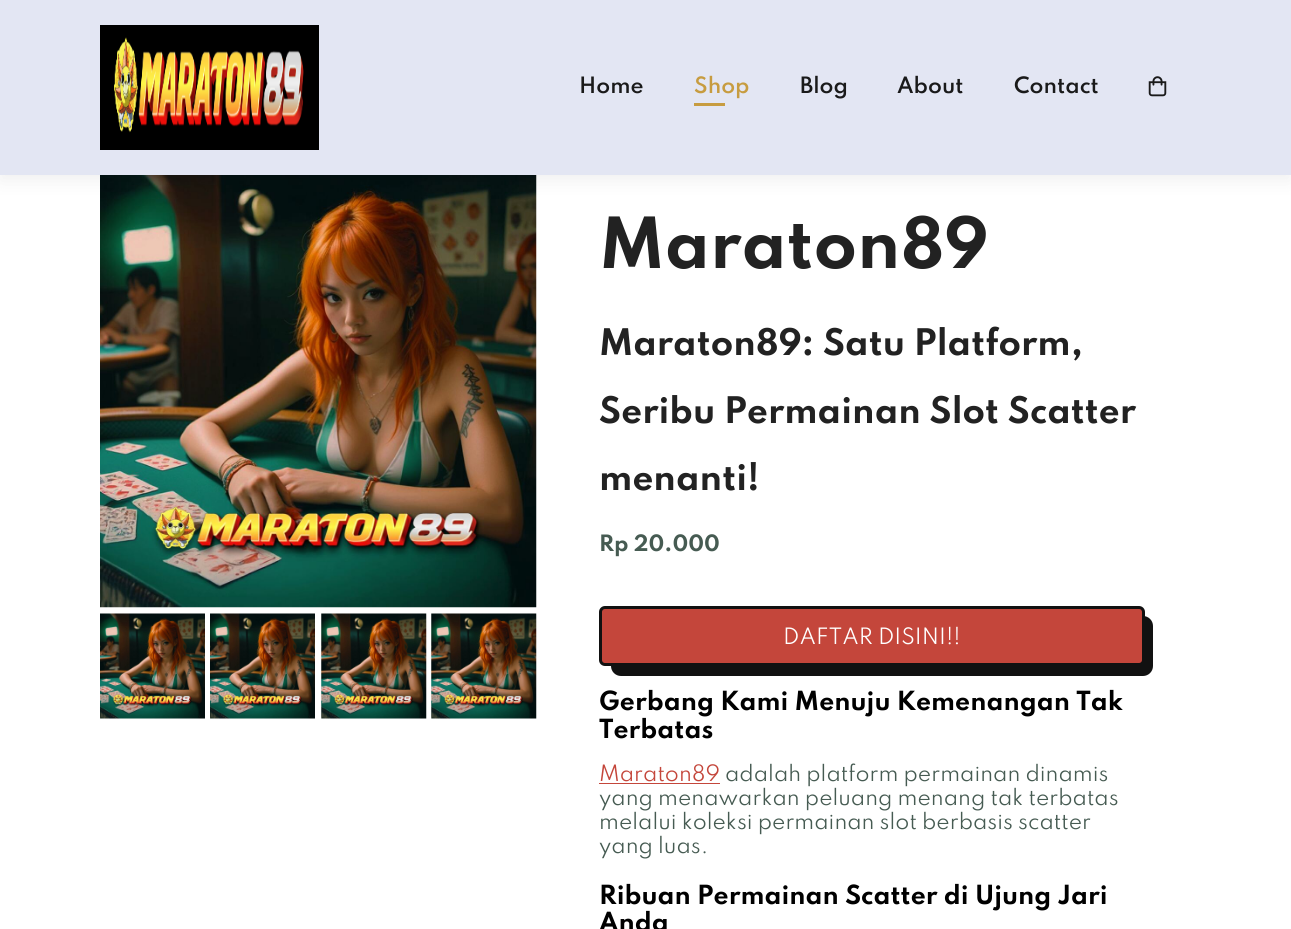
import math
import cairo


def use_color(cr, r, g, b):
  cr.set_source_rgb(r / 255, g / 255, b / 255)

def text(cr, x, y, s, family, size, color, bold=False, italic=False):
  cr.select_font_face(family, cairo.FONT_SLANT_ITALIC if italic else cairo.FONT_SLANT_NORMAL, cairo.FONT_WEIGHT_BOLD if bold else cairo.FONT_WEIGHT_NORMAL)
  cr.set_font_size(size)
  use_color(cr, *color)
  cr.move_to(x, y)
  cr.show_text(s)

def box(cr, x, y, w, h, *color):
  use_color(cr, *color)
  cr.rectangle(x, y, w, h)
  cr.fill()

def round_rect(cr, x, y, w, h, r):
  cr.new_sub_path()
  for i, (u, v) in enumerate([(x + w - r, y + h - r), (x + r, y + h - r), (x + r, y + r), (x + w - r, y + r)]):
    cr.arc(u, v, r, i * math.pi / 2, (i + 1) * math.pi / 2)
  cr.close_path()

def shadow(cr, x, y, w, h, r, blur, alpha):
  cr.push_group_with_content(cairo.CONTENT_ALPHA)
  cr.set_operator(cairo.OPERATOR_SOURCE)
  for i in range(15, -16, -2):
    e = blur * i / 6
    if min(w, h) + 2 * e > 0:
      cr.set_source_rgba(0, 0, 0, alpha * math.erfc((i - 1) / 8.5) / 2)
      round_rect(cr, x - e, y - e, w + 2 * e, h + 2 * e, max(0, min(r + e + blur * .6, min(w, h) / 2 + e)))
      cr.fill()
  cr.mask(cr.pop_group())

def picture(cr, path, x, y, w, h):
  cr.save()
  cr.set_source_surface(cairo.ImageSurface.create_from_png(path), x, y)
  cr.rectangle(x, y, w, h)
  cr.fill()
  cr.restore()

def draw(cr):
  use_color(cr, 255, 255, 255)
  cr.paint()
  picture(cr, "img_03.png", 100, 175, 437, 433)
  use_color(cr, 0, 0, 0)
  shadow(cr, 0, 6, 1291, 175, 0, 9.5, 0.06)
  box(cr, 0, 0, 1291, 175, 227, 230, 243)
  box(cr, 100, 25, 219, 125, 0, 0, 0)
  picture(cr, "img_01.png", 114, 37, 190, 96)
  box(cr, 694, 103, 31, 3, 199, 156, 64)
  picture(cr, "img_02.png", 1148, 76, 19, 21)
  picture(cr, "img_04.png", 100, 613, 105, 106)
  picture(cr, "img_04.png", 210, 613, 105, 106)
  picture(cr, "img_05.png", 321, 613, 106, 106)
  picture(cr, "img_06.png", 431, 613, 106, 106)
  use_color(cr, 17, 17, 17)
  round_rect(cr, 611, 616, 542, 60, 10)
  cr.fill()
  use_color(cr, 196, 70, 59)
  round_rect(cr, 600.5, 607.5, 543, 57, 4.5)
  cr.fill_preserve()
  use_color(cr, 17, 17, 17)
  cr.set_line_width(3)
  cr.stroke()
  box(cr, 599, 783, 121, 1, 196, 70, 59)
  text(cr, 579, 93, "Home", "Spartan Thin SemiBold", 20, (26, 26, 26))
  text(cr, 694, 93, "Shop", "Spartan Thin SemiBold", 20, (199, 156, 64))
  text(cr, 800, 93, "Blog", "Spartan Thin SemiBold", 20, (26, 26, 26))
  text(cr, 897, 93, "About", "Spartan Thin SemiBold", 20, (26, 26, 26))
  text(cr, 1014, 93, "Contact", "Spartan Thin SemiBold", 20, (26, 26, 26))
  text(cr, 599, 268, "Maraton89", "Spartan Thin", 62.5, (34, 34, 34), bold=True)
  text(cr, 599, 355, "Maraton89: Satu Platform,", "Spartan Thin", 32.5, (34, 34, 34), bold=True)
  text(cr, 599, 423, "Seribu Permainan Slot Scatter", "Spartan Thin", 32.5, (34, 34, 34), bold=True)
  text(cr, 599, 490, "menanti!", "Spartan Thin", 32.5, (34, 34, 34), bold=True)
  text(cr, 599, 551, "Rp 20.000", "Spartan Thin", 20, (70, 91, 82), bold=True)
  text(cr, 783, 644, "DAFTAR DISINI!!", "Spartan Thin", 20, (255, 255, 255))
  text(cr, 599, 710, "Gerbang Kami Menuju Kemenangan Tak", "Spartan Thin", 23.4, (0, 0, 0), bold=True)
  text(cr, 599, 738, "Terbatas", "Spartan Thin", 23.4, (0, 0, 0), bold=True)
  text(cr, 599, 781, "Maraton89", "Spartan Thin", 20, (196, 70, 59))
  text(cr, 725, 781, "adalah platform permainan dinamis", "Spartan Thin", 20, (70, 91, 82))
  text(cr, 599, 805, "yang menawarkan peluang menang tak terbatas", "Spartan Thin", 20, (70, 91, 82))
  text(cr, 599, 829, "melalui koleksi permainan slot berbasis scatter", "Spartan Thin", 20, (70, 91, 82))
  text(cr, 599, 853, "yang luas.", "Spartan Thin", 20, (70, 91, 82))
  text(cr, 599, 904, "Ribuan Permainan Scatter di Ujung Jari", "Spartan Thin", 23.4, (0, 0, 0), bold=True)
  text(cr, 599, 931, "Anda", "Spartan Thin", 23.4, (0, 0, 0), bold=True)


surface = cairo.ImageSurface(cairo.FORMAT_RGB24, 1291, 929)
cr = cairo.Context(surface)
options = cairo.FontOptions()
options.set_hint_metrics(cairo.HINT_METRICS_OFF)
options.set_hint_style(cairo.HINT_STYLE_NONE)
cr.set_font_options(options)
cr.set_miter_limit(4)
draw(cr)
surface.write_to_png("out.png")
